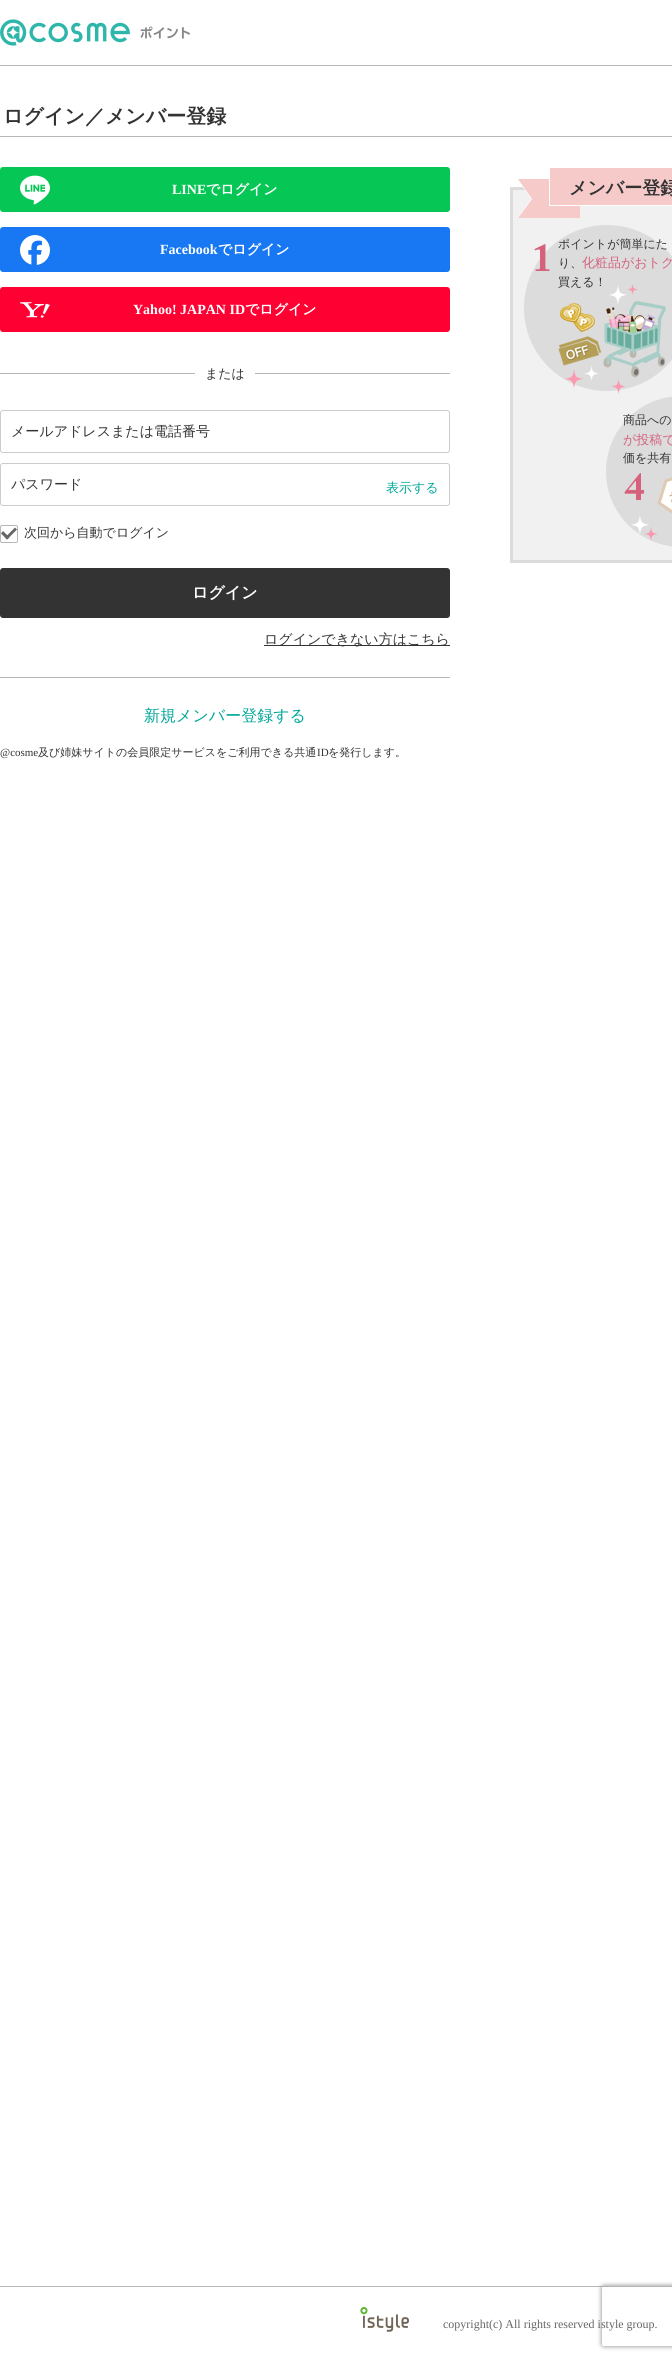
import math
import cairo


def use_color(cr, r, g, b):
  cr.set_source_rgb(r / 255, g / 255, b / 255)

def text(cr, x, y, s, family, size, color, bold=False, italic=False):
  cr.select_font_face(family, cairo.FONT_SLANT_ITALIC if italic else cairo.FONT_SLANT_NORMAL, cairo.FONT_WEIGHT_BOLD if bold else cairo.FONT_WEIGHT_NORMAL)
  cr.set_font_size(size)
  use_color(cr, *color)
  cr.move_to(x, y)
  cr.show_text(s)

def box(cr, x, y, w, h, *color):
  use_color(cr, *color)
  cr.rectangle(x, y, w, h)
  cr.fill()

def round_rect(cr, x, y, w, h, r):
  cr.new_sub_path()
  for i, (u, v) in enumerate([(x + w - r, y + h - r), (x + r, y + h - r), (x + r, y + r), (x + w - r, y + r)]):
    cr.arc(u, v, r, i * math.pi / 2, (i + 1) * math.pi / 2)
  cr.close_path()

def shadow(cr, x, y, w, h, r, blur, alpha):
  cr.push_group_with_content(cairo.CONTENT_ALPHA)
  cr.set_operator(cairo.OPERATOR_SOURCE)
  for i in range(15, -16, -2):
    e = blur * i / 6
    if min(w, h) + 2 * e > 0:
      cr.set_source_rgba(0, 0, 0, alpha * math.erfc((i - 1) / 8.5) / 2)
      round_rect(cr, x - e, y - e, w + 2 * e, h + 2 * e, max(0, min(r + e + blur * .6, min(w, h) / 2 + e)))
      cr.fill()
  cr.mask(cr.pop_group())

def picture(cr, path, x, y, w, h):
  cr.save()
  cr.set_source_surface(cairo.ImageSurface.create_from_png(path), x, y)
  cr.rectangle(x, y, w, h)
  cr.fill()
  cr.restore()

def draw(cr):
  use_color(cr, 255, 255, 255)
  cr.paint()
  box(cr, 0, 65, 672, 1, 182, 182, 182)
  picture(cr, "img_01.png", 0, 19, 190, 27)
  box(cr, 0, 136, 672, 1, 182, 182, 182)
  use_color(cr, 6, 199, 85)
  round_rect(cr, 0, 167, 450, 45, 3)
  cr.fill()
  picture(cr, "img_02.png", 20, 175, 30, 30)
  use_color(cr, 24, 119, 242)
  round_rect(cr, 0, 227, 450, 45, 3)
  cr.fill()
  picture(cr, "img_03.png", 20, 235, 30, 30)
  use_color(cr, 255, 0, 51)
  round_rect(cr, 0, 287, 450, 45, 3)
  cr.fill()
  picture(cr, "img_04.png", 20, 302, 30, 16)
  box(cr, 0, 373, 450, 1, 182, 182, 182)
  box(cr, 195, 373, 60, 1, 255, 255, 255)
  round_rect(cr, 0.5, 410.5, 449, 42, 2.5)
  use_color(cr, 204, 204, 204)
  cr.set_line_width(1)
  cr.stroke()
  round_rect(cr, 0.5, 463.5, 449, 42, 2.5)
  cr.stroke()
  round_rect(cr, 0.5, 525.5, 17, 17, 1.5)
  use_color(cr, 182, 182, 182)
  cr.stroke()
  use_color(cr, 102, 102, 102)
  cr.new_path()
  cr.move_to(5, 537.5)
  cr.line_to(15, 527.5)
  cr.line_to(17, 529.5)
  cr.line_to(7, 539.5)
  cr.close_path()
  cr.fill()
  cr.new_path()
  cr.move_to(1, 533.5)
  cr.line_to(3, 531)
  cr.line_to(9.5, 537.5)
  cr.line_to(7, 539.5)
  cr.close_path()
  cr.fill()
  use_color(cr, 51, 51, 51)
  round_rect(cr, 0, 568, 450, 50, 3)
  cr.fill()
  box(cr, 264, 645, 186, 1, 51, 51, 51)
  box(cr, 0, 677, 450, 1, 182, 182, 182)
  box(cr, 513, 190, 159, 370, 241, 241, 241)
  picture(cr, "img_06.png", 524, 225, 148, 322)
  cr.rectangle(511.5, 188.5, 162, 373)
  use_color(cr, 220, 220, 220)
  cr.set_line_width(3)
  cr.stroke()
  picture(cr, "img_05.png", 518, 168, 154, 50)
  box(cr, 0, 2286, 672, 1, 182, 182, 182)
  picture(cr, "img_07.png", 360, 2307, 49, 25)
  cr.save()
  cr.set_fill_rule(cairo.FILL_RULE_EVEN_ODD)
  cr.new_path()
  cr.move_to(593, 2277)
  cr.line_to(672, 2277)
  cr.line_to(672, 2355)
  cr.line_to(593, 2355)
  cr.close_path()
  cr.move_to(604, 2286)
  cr.line_to(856, 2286)
  cr.curve_to(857, 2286, 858, 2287, 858, 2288)
  cr.line_to(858, 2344)
  cr.curve_to(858, 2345, 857, 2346, 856, 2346)
  cr.line_to(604, 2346)
  cr.curve_to(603, 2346, 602, 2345, 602, 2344)
  cr.line_to(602, 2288)
  cr.curve_to(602, 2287, 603, 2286, 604, 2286)
  cr.close_path()
  cr.clip()
  use_color(cr, 128, 128, 128)
  shadow(cr, 602, 2286, 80, 60, 2, 2.5, 1)
  cr.restore()
  text(cr, 3, 123, "ログイン／メンバー登録", "WenQuanYi Zen Hei", 20, (51, 51, 51), bold=True)
  text(cr, 172, 194, "LINE", "Liberation Serif", 14, (255, 255, 255), bold=True)
  text(cr, 206, 194, "でログイン", "WenQuanYi Zen Hei", 14, (255, 255, 255), bold=True)
  text(cr, 160, 254, "Facebook", "Liberation Serif", 14, (255, 255, 255), bold=True)
  text(cr, 218, 254, "でログイン", "WenQuanYi Zen Hei", 14, (255, 255, 255), bold=True)
  text(cr, 133, 314, "Yahoo! JAPAN ID", "Liberation Serif", 14, (255, 255, 255), bold=True)
  text(cr, 245, 314, "でログイン", "WenQuanYi Zen Hei", 14, (255, 255, 255), bold=True)
  text(cr, 205, 378, "または", "WenQuanYi Zen Hei Medium", 13, (51, 51, 51))
  text(cr, 11, 436, "メールアドレスまたは電話番号", "WenQuanYi Zen Hei Medium", 14, (51, 51, 51))
  text(cr, 11, 489, "パスワード", "WenQuanYi Zen Hei Medium", 14, (51, 51, 51))
  text(cr, 386, 492, "表示する", "WenQuanYi Zen Hei Medium", 13, (0, 166, 153))
  text(cr, 24, 537, "次回から自動でログイン", "WenQuanYi Zen Hei Medium", 13, (51, 51, 51))
  text(cr, 192, 598, "ログイン", "WenQuanYi Zen Hei", 16, (255, 255, 255), bold=True)
  text(cr, 264, 644, "ログインできない方はこちら", "WenQuanYi Zen Hei Medium", 14, (51, 51, 51))
  text(cr, 144, 721, "新規メンバー登録する", "WenQuanYi Zen Hei Medium", 16, (0, 166, 153))
  text(cr, 0, 756, "@cosme", "Liberation Serif", 11, (51, 51, 51))
  text(cr, 38, 756, "及び姉妹サイトの会員限定サービスをご利用できる共通", "WenQuanYi Zen Hei Medium", 11, (51, 51, 51))
  text(cr, 317, 756, "ID", "Liberation Serif", 11, (51, 51, 51))
  text(cr, 328, 756, "を発行します。", "WenQuanYi Zen Hei Medium", 11, (51, 51, 51))
  text(cr, 569, 194, "メンバー登録", "WenQuanYi Zen Hei", 18, (51, 51, 51), bold=True)
  text(cr, 558, 248, "ポイントが簡単にた", "WenQuanYi Zen Hei Medium", 12, (51, 51, 51))
  text(cr, 558, 267, "り、", "WenQuanYi Zen Hei Medium", 12, (51, 51, 51))
  text(cr, 582, 267, "化粧品がおトク", "WenQuanYi Zen Hei Medium", 13, (213, 97, 125))
  text(cr, 558, 286, "買える！", "WenQuanYi Zen Hei Medium", 12, (51, 51, 51))
  text(cr, 623, 424, "商品への", "WenQuanYi Zen Hei Medium", 12, (51, 51, 51))
  text(cr, 623, 444, "が投稿で", "WenQuanYi Zen Hei Medium", 13, (213, 97, 125))
  text(cr, 623, 462, "価を共有", "WenQuanYi Zen Hei Medium", 12, (51, 51, 51))
  text(cr, 443, 2328, "copyright(c) All rights reserved istyle group.", "Liberation Serif", 12, (102, 102, 102))


surface = cairo.ImageSurface(cairo.FORMAT_RGB24, 672, 2360)
cr = cairo.Context(surface)
options = cairo.FontOptions()
options.set_hint_metrics(cairo.HINT_METRICS_OFF)
options.set_hint_style(cairo.HINT_STYLE_NONE)
cr.set_font_options(options)
cr.set_miter_limit(4)
draw(cr)
surface.write_to_png("out.png")
